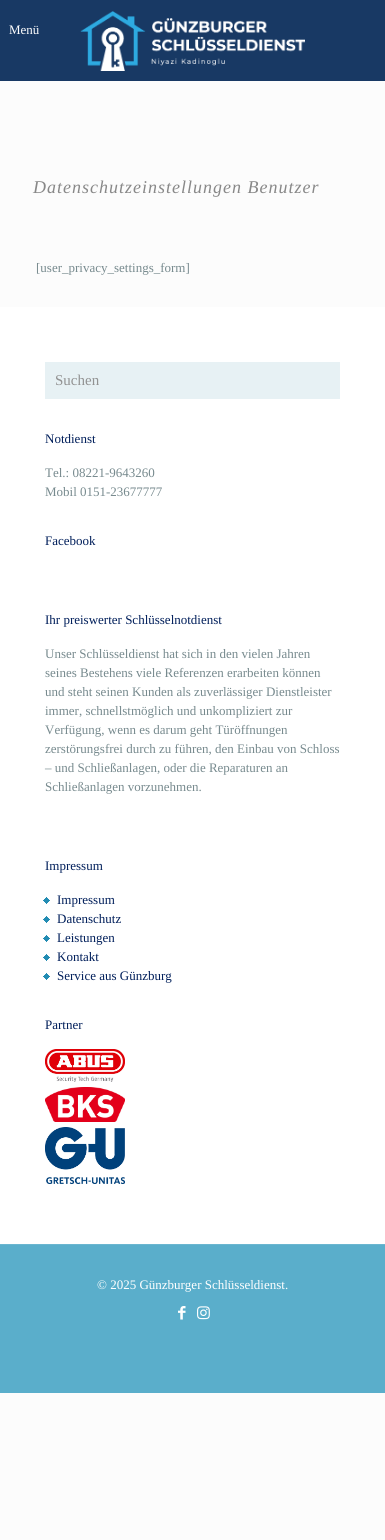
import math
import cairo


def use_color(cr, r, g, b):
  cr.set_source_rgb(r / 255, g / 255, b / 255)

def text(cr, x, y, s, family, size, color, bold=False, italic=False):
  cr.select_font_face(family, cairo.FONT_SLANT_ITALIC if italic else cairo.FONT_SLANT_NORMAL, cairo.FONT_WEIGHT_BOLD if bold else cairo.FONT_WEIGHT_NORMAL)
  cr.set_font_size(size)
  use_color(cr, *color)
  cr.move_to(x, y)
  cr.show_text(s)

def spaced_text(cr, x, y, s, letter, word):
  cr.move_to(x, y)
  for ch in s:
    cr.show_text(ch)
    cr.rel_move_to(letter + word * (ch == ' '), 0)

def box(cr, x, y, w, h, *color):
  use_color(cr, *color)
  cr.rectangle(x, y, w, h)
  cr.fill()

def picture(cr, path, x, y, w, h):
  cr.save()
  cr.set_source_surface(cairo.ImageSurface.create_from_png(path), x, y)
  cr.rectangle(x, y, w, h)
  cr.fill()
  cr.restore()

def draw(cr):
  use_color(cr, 252, 252, 252)
  cr.paint()
  box(cr, 0, 0, 385, 81, 24, 57, 100)
  picture(cr, "img_01.png", 80, 11, 225, 60)
  box(cr, 0, 307, 385, 937, 255, 255, 255)
  box(cr, 45, 362, 295, 37, 231, 241, 244)
  picture(cr, "img_02.png", 43, 897, 7, 7)
  picture(cr, "img_02.png", 43, 916, 7, 7)
  picture(cr, "img_02.png", 43, 935, 7, 7)
  picture(cr, "img_02.png", 43, 954, 7, 7)
  picture(cr, "img_02.png", 43, 973, 7, 7)
  picture(cr, "img_03.png", 45, 1049, 80, 33)
  picture(cr, "img_04.png", 45, 1087, 80, 35)
  picture(cr, "img_05.png", 45, 1127, 80, 57)
  box(cr, 0, 1245, 385, 148, 90, 174, 203)
  box(cr, 0, 1244, 385, 1, 107, 182, 208)
  picture(cr, "img_06.png", 178, 1306, 8, 14)
  picture(cr, "img_07.png", 197, 1306, 13, 14)
  text(cr, 9, 34, "Menü", "Liberation Serif", 13, (255, 255, 255))
  cr.select_font_face("Liberation Serif", cairo.FONT_SLANT_ITALIC)
  cr.set_font_size(18)
  use_color(cr, 136, 136, 136)
  spaced_text(cr, 33, 193, "Datenschutzeinstellungen Benutzer", 1, 0)
  text(cr, 36, 272, "[user_privacy_settings_form]", "Liberation Serif", 13, (119, 138, 142))
  text(cr, 55, 385, "Suchen", "Liberation Serif", 15, (146, 146, 146))
  text(cr, 45, 443, "Notdienst", "Liberation Serif", 13, (0, 30, 90))
  text(cr, 45, 477, "Tel.: 08221-9643260", "Liberation Serif", 13, (119, 138, 142))
  text(cr, 45, 496, "Mobil 0151-23677777", "Liberation Serif", 13, (119, 138, 142))
  text(cr, 45, 545, "Facebook", "Liberation Serif", 13, (0, 30, 90))
  text(cr, 45, 624, "Ihr preiswerter Schlüsselnotdienst", "Liberation Serif", 13, (0, 30, 90))
  text(cr, 45, 658, "Unser Schlüsseldienst hat sich in den vielen Jahren", "Liberation Serif", 13, (119, 138, 142))
  text(cr, 45, 677, "seines Bestehens viele Referenzen erarbeiten können", "Liberation Serif", 13, (119, 138, 142))
  text(cr, 45, 696, "und steht seinen Kunden als zuverlässiger Dienstleister", "Liberation Serif", 13, (119, 138, 142))
  text(cr, 45, 715, "immer, schnellstmöglich und unkompliziert zur", "Liberation Serif", 13, (119, 138, 142))
  text(cr, 45, 734, "Verfügung, wenn es darum geht Türöffnungen", "Liberation Serif", 13, (119, 138, 142))
  text(cr, 45, 753, "zerstörungsfrei durch zu führen, den Einbau von Schloss", "Liberation Serif", 13, (119, 138, 142))
  text(cr, 45, 772, "– und Schließanlagen, oder die Reparaturen an", "Liberation Serif", 13, (119, 138, 142))
  text(cr, 45, 791, "Schließanlagen vorzunehmen.", "Liberation Serif", 13, (119, 138, 142))
  text(cr, 45, 870, "Impressum", "Liberation Serif", 13, (0, 30, 90))
  text(cr, 57, 904, "Impressum", "Liberation Serif", 13, (0, 30, 90))
  text(cr, 57, 923, "Datenschutz", "Liberation Serif", 13, (0, 30, 90))
  text(cr, 57, 942, "Leistungen", "Liberation Serif", 13, (0, 30, 90))
  text(cr, 57, 961, "Kontakt", "Liberation Serif", 13, (0, 30, 90))
  text(cr, 57, 980, "Service aus Günzburg", "Liberation Serif", 13, (0, 30, 90))
  text(cr, 45, 1029, "Partner", "Liberation Serif", 13, (0, 30, 90))
  text(cr, 97, 1289, "© 2025 Günzburger Schlüsseldienst.", "Liberation Serif", 13, (255, 255, 255))


surface = cairo.ImageSurface(cairo.FORMAT_RGB24, 385, 1540)
cr = cairo.Context(surface)
options = cairo.FontOptions()
options.set_hint_metrics(cairo.HINT_METRICS_OFF)
options.set_hint_style(cairo.HINT_STYLE_NONE)
cr.set_font_options(options)
cr.set_miter_limit(4)
draw(cr)
surface.write_to_png("out.png")
